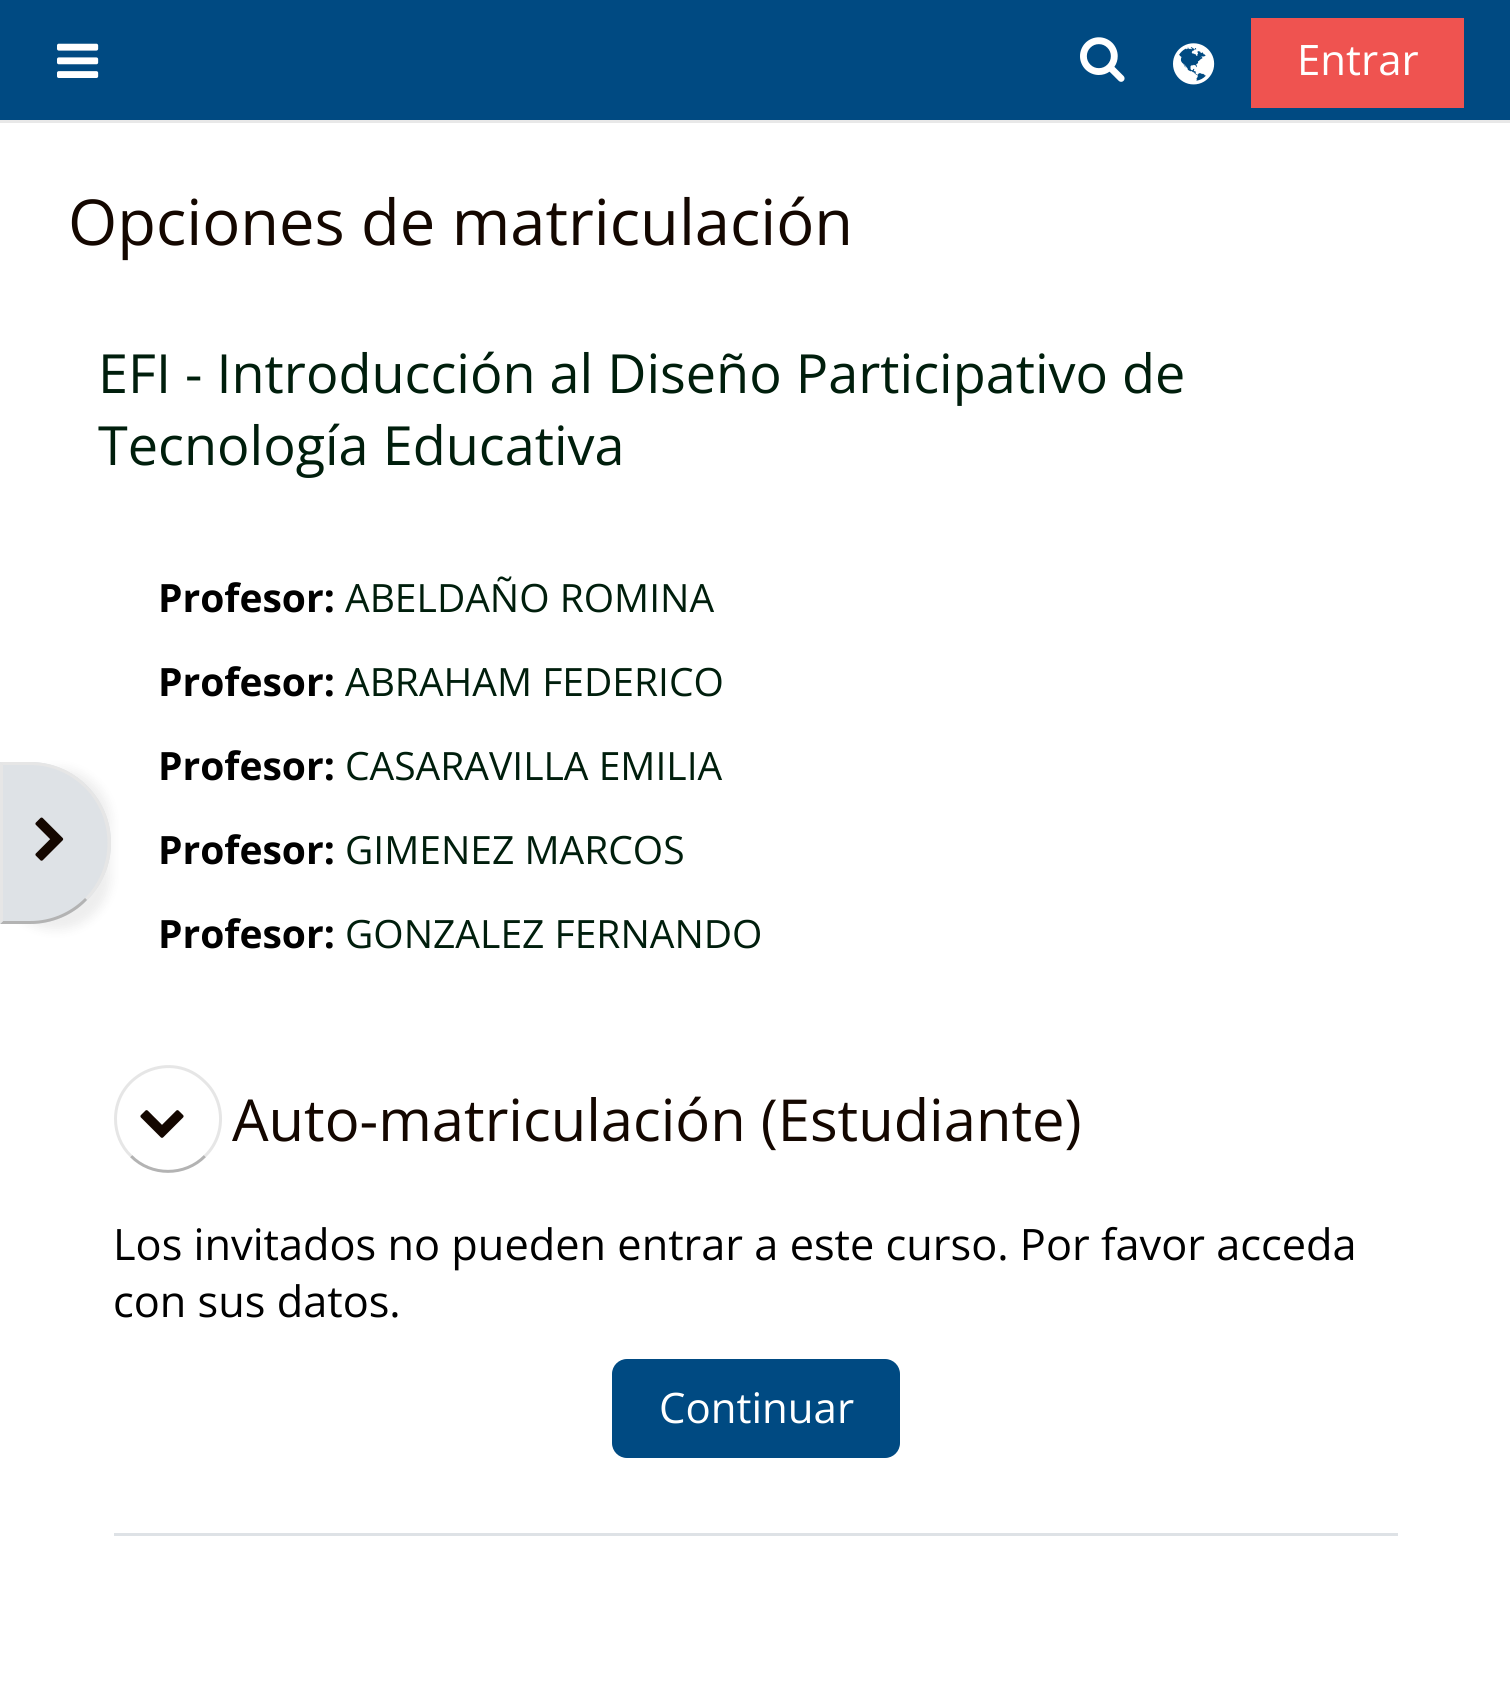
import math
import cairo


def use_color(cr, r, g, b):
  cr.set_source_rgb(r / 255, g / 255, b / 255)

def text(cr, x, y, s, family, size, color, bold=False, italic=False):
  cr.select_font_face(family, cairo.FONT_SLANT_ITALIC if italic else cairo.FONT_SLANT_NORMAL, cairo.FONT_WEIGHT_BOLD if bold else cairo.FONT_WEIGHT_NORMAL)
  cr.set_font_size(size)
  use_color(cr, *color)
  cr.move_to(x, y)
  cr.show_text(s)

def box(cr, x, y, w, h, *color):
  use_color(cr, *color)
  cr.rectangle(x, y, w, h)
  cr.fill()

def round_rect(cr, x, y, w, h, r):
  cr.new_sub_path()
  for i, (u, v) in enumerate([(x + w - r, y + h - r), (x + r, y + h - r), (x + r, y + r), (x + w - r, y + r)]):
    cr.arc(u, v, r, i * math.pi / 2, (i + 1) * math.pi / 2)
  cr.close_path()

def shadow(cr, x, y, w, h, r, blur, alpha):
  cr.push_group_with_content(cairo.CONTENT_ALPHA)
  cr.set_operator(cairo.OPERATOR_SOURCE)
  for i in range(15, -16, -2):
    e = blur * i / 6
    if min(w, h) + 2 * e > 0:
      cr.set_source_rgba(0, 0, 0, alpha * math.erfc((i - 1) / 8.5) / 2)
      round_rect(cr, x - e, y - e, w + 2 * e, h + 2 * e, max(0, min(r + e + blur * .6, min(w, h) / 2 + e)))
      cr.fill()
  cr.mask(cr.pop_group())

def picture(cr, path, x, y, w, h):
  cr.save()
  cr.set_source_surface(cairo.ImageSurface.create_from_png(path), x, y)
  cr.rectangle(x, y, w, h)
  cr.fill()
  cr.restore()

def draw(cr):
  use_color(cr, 255, 255, 255)
  cr.paint()
  box(cr, 0, 0, 1510, 120, 0, 74, 130)
  box(cr, 0, 120, 1510, 3, 232, 232, 232)
  picture(cr, "img_01.png", 57, 43, 42, 35)
  picture(cr, "img_02.png", 1080, 37, 45, 45)
  picture(cr, "img_03.png", 1173, 43, 42, 42)
  box(cr, 1251, 18, 213, 90, 239, 83, 80)
  use_color(cr, 0, 0, 0)
  shadow(cr, 0, 768, 111, 162, 81, 5.5, 0.07)
  use_color(cr, 222, 226, 230)
  cr.new_path()
  cr.move_to(0, 762)
  cr.line_to(30, 762)
  cr.curve_to(74.5, 762, 111, 798.5, 111, 843)
  cr.curve_to(111, 887.5, 74.5, 924, 30, 924)
  cr.line_to(0, 924)
  cr.close_path()
  cr.fill()
  use_color(cr, 230, 230, 230)
  cr.new_path()
  cr.move_to(0, 762)
  cr.line_to(3, 765)
  cr.line_to(30, 765)
  cr.curve_to(52, 765, 71, 774, 85, 788)
  cr.line_to(87, 786)
  cr.curve_to(73, 771, 52, 762, 30, 762)
  cr.close_path()
  cr.fill()
  cr.new_path()
  cr.move_to(87, 786)
  cr.curve_to(119, 817, 119, 869, 87, 900)
  cr.line_to(85, 898)
  cr.curve_to(115, 868, 115, 818, 85, 788)
  cr.close_path()
  cr.fill()
  use_color(cr, 179, 179, 179)
  cr.new_path()
  cr.move_to(30, 924)
  cr.curve_to(52, 924, 73, 915, 87, 900)
  cr.line_to(85, 898)
  cr.curve_to(71, 912, 52, 921, 30, 921)
  cr.line_to(3, 921)
  cr.line_to(0, 924)
  cr.close_path()
  cr.fill()
  use_color(cr, 230, 230, 230)
  cr.new_path()
  cr.move_to(3, 765)
  cr.line_to(0, 762)
  cr.line_to(0, 924)
  cr.line_to(3, 921)
  cr.close_path()
  cr.fill()
  picture(cr, "img_04.png", 35, 817, 29, 44)
  box(cr, 114, 1533, 1284, 3, 222, 226, 230)
  cr.new_path()
  cr.move_to(205, 1156)
  cr.curve_to(185, 1176.5, 151, 1176.5, 131, 1156)
  use_color(cr, 179, 179, 179)
  cr.set_line_width(3)
  cr.stroke()
  cr.new_path()
  cr.move_to(131, 1156)
  cr.curve_to(121, 1146.5, 115.5, 1133, 115.5, 1119)
  cr.curve_to(115.5, 1072.5, 172.5, 1049, 205, 1082)
  cr.curve_to(212.5, 1089, 217.5, 1098.5, 219.5, 1108.5)
  cr.curve_to(223, 1126, 217.5, 1144, 205, 1156)
  use_color(cr, 230, 230, 230)
  cr.stroke()
  picture(cr, "img_05.png", 140, 1110, 44, 28)
  use_color(cr, 0, 74, 130)
  round_rect(cr, 612, 1359, 288, 99, 15)
  cr.fill()
  text(cr, 1297, 75, "Entrar", "Open Sans", 42, (255, 255, 255))
  text(cr, 68, 245, "Opciones de matriculación", "Open Sans", 63.25, (20, 7, 0))
  text(cr, 98, 393, "EFI - Introducción al Diseño Participativo de", "Open Sans", 54, (0, 30, 12))
  text(cr, 98, 465, "Tecnología Educativa", "Open Sans", 54, (0, 30, 12))
  text(cr, 158, 612, "Profesor:", "Open Sans", 39, (0, 0, 0), bold=True)
  text(cr, 345, 612, "ABELDAÑO ROMINA", "Open Sans", 39, (0, 30, 12))
  text(cr, 158, 696, "Profesor:", "Open Sans", 39, (0, 0, 0), bold=True)
  text(cr, 345, 696, "ABRAHAM FEDERICO", "Open Sans", 39, (0, 30, 12))
  text(cr, 158, 780, "Profesor:", "Open Sans", 39, (0, 0, 0), bold=True)
  text(cr, 345, 780, "CASARAVILLA EMILIA", "Open Sans", 39, (0, 30, 12))
  text(cr, 158, 864, "Profesor:", "Open Sans", 39, (0, 0, 0), bold=True)
  text(cr, 345, 864, "GIMENEZ MARCOS", "Open Sans", 39, (0, 30, 12))
  text(cr, 158, 948, "Profesor:", "Open Sans", 39, (0, 0, 0), bold=True)
  text(cr, 345, 948, "GONZALEZ FERNANDO", "Open Sans", 39, (0, 30, 12))
  text(cr, 232, 1141, "Auto-matriculación (Estudiante)", "Open Sans", 57.9, (20, 7, 0))
  text(cr, 113, 1260, "Los invitados no pueden entrar a este curso. Por favor acceda", "Open Sans", 43.3, (0, 0, 0))
  text(cr, 113, 1317, "con sus datos.", "Open Sans", 43.3, (0, 0, 0))
  text(cr, 659, 1423, "Continuar", "Open Sans", 42, (255, 255, 255))


surface = cairo.ImageSurface(cairo.FORMAT_RGB24, 1510, 1682)
cr = cairo.Context(surface)
options = cairo.FontOptions()
options.set_hint_metrics(cairo.HINT_METRICS_OFF)
options.set_hint_style(cairo.HINT_STYLE_NONE)
cr.set_font_options(options)
cr.set_miter_limit(4)
draw(cr)
surface.write_to_png("out.png")
